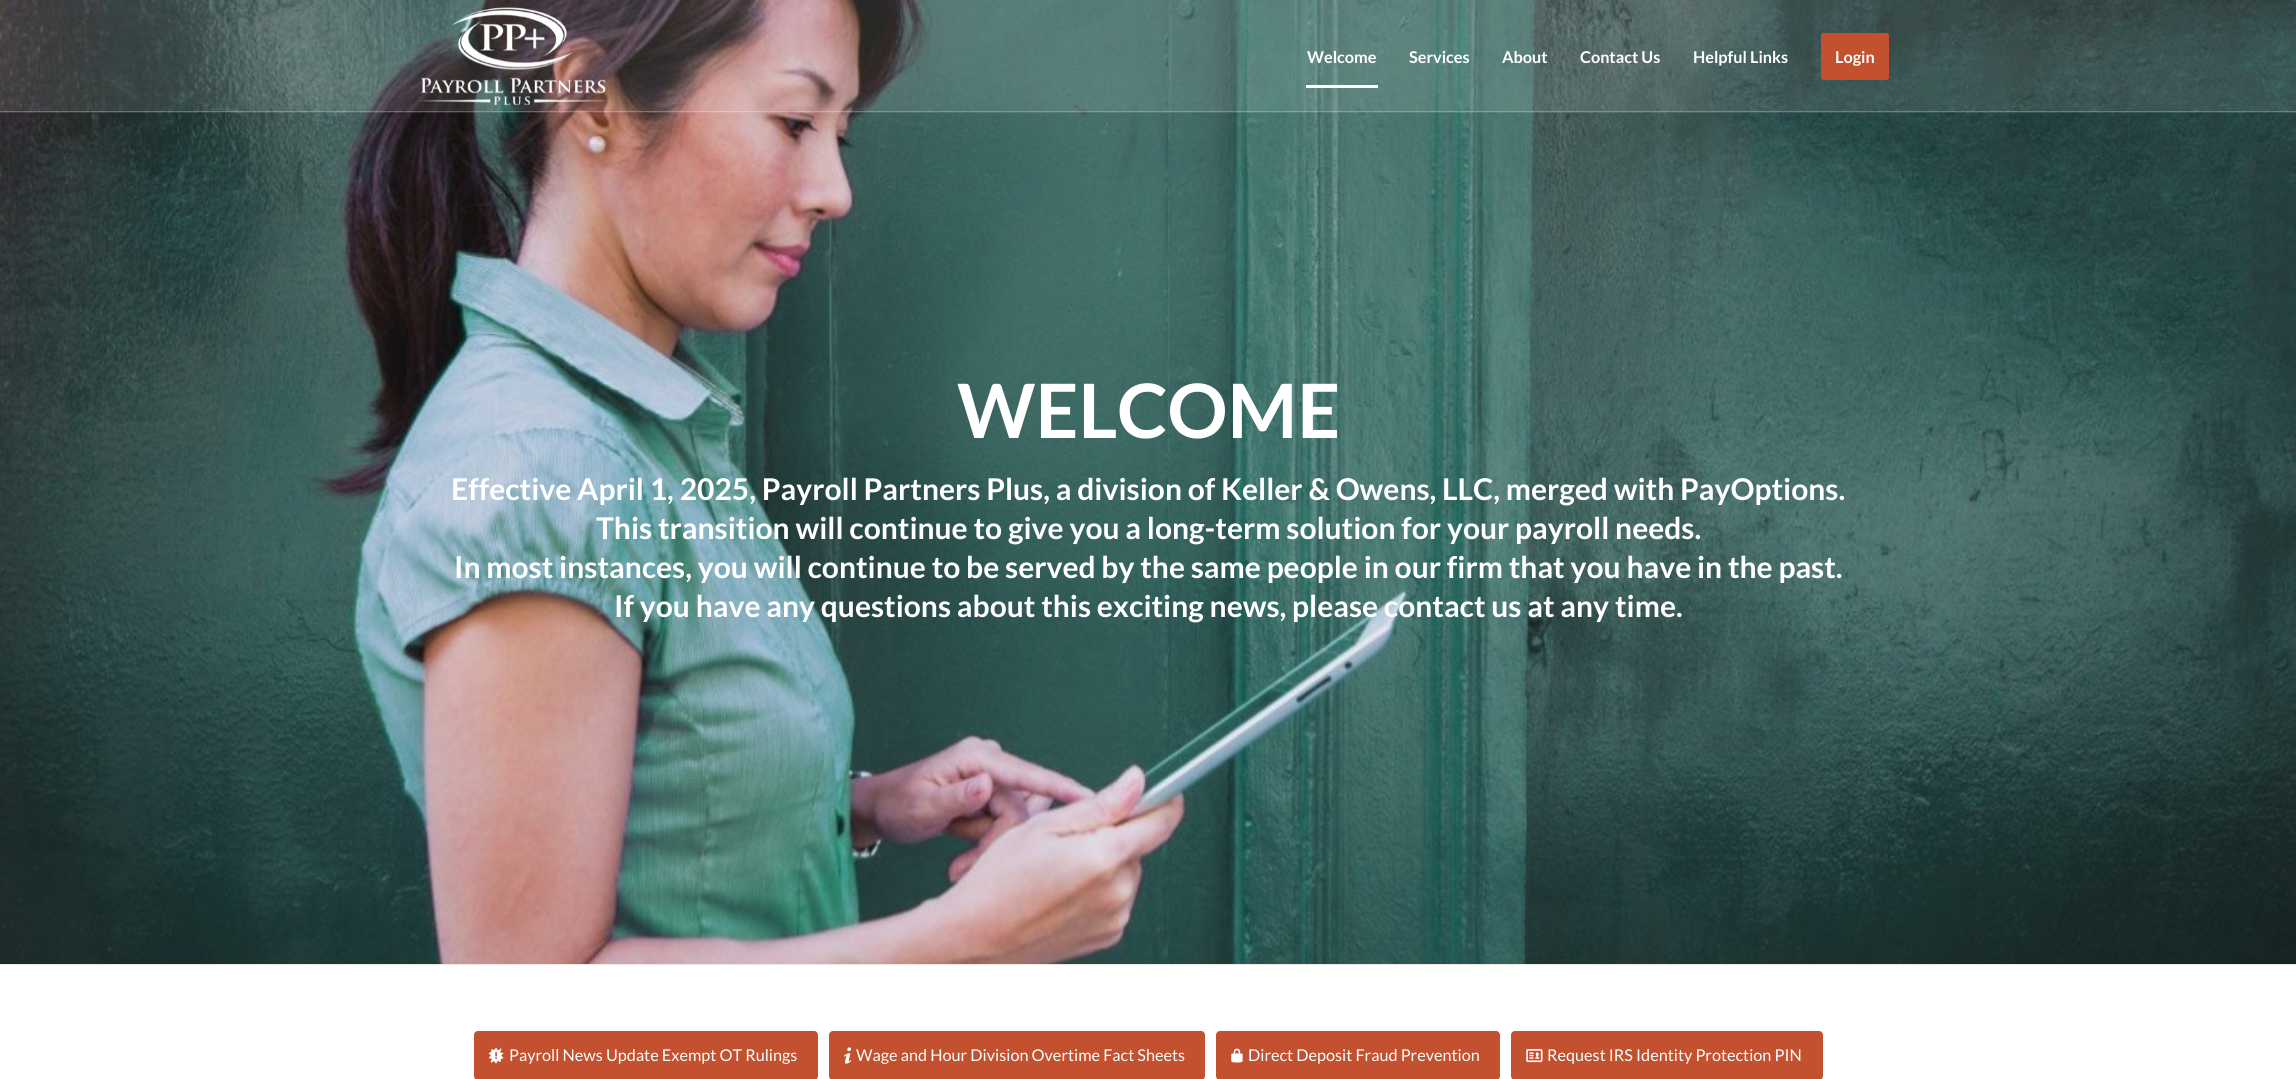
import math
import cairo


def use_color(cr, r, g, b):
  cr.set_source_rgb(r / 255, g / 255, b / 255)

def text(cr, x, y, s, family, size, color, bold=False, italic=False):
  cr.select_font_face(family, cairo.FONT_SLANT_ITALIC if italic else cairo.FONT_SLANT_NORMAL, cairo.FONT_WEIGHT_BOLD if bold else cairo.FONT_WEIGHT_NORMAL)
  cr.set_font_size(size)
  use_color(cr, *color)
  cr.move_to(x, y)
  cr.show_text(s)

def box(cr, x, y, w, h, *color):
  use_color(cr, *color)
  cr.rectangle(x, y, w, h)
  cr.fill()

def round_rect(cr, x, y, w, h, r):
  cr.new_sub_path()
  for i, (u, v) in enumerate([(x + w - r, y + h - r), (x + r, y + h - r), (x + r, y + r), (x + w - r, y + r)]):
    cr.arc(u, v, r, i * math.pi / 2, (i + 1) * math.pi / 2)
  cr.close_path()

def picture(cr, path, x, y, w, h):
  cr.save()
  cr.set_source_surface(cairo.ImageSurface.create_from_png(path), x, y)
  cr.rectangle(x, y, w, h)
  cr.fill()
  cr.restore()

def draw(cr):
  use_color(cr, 255, 255, 255)
  cr.paint()
  picture(cr, "img_02.png", 0, 0, 2296, 964)
  cr.set_source_rgba(1, 1, 1, 0.1)
  cr.rectangle(0, 0, 2296, 113)
  cr.fill()
  cr.set_source_rgba(1, 1, 1, 0.25)
  cr.rectangle(0, 111, 2296, 1)
  cr.fill()
  picture(cr, "img_01.png", 419, 7, 187, 99)
  box(cr, 1306, 85, 72, 3, 255, 255, 255)
  use_color(cr, 195, 81, 47)
  round_rect(cr, 1822.5, 34.5, 65, 44, 1)
  cr.fill_preserve()
  cr.set_line_width(3)
  cr.stroke()
  box(cr, 0, 964, 2296, 1, 235, 232, 226)
  use_color(cr, 195, 81, 47)
  round_rect(cr, 474, 1031, 344, 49, 4)
  cr.fill()
  picture(cr, "img_03.png", 488, 1047, 16, 17)
  round_rect(cr, 829, 1031, 376, 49, 4)
  cr.fill()
  picture(cr, "img_04.png", 843, 1047, 9, 17)
  round_rect(cr, 1216, 1031, 284, 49, 4)
  cr.fill()
  picture(cr, "img_05.png", 1231, 1048, 12, 15)
  round_rect(cr, 1511, 1031, 312, 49, 4)
  cr.fill()
  picture(cr, "img_06.png", 1526, 1049, 17, 14)
  text(cr, 1307, 63, "Welcome", "Lato", 16.25, (255, 255, 255), bold=True)
  text(cr, 1409, 63, "Services", "Lato", 16.25, (255, 255, 255), bold=True)
  text(cr, 1502, 63, "About", "Lato", 16.25, (255, 255, 255), bold=True)
  text(cr, 1580, 63, "Contact Us", "Lato", 16.25, (255, 255, 255), bold=True)
  text(cr, 1693, 63, "Helpful Links", "Lato", 16.25, (255, 255, 255), bold=True)
  text(cr, 1835, 63, "Login", "Lato", 16.25, (255, 255, 255), bold=True)
  text(cr, 957, 438, "WELCOME", "Lato", 75, (255, 255, 255), bold=True)
  text(cr, 451, 500, "Effective April 1, 2025, Payroll Partners Plus, a division of Keller & Owens, LLC, merged with PayOptions.", "Lato", 30, (255, 255, 255), bold=True)
  text(cr, 596, 539, "This transition will continue to give you a long-term solution for your payroll needs.", "Lato", 30, (255, 255, 255), bold=True)
  text(cr, 454, 578, "In most instances, you will continue to be served by the same people in our firm that you have in the past.", "Lato", 30, (255, 255, 255), bold=True)
  text(cr, 614, 617, "If you have any questions about this exciting news, please contact us at any time.", "Lato", 30, (255, 255, 255), bold=True)
  text(cr, 509, 1061, "Payroll News Update Exempt OT Rulings", "Lato", 16.25, (255, 255, 255))
  text(cr, 856, 1061, "Wage and Hour Division Overtime Fact Sheets", "Lato", 16.25, (255, 255, 255))
  text(cr, 1248, 1061, "Direct Deposit Fraud Prevention", "Lato", 16.25, (255, 255, 255))
  text(cr, 1547, 1061, "Request IRS Identity Protection PIN", "Lato", 16.25, (255, 255, 255))


surface = cairo.ImageSurface(cairo.FORMAT_RGB24, 2296, 1079)
cr = cairo.Context(surface)
options = cairo.FontOptions()
options.set_hint_metrics(cairo.HINT_METRICS_OFF)
options.set_hint_style(cairo.HINT_STYLE_NONE)
cr.set_font_options(options)
cr.set_miter_limit(4)
draw(cr)
surface.write_to_png("out.png")
